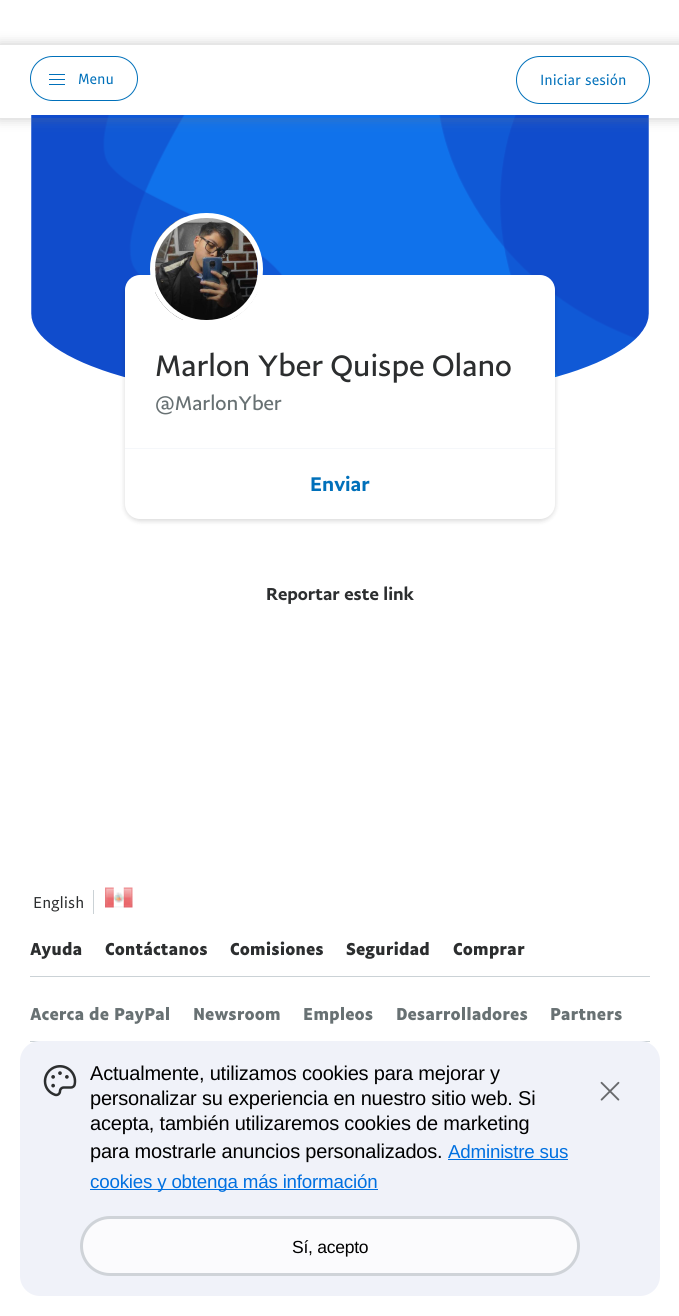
import math
import cairo


def use_color(cr, r, g, b):
  cr.set_source_rgb(r / 255, g / 255, b / 255)

def text(cr, x, y, s, family, size, color, bold=False, italic=False):
  cr.select_font_face(family, cairo.FONT_SLANT_ITALIC if italic else cairo.FONT_SLANT_NORMAL, cairo.FONT_WEIGHT_BOLD if bold else cairo.FONT_WEIGHT_NORMAL)
  cr.set_font_size(size)
  use_color(cr, *color)
  cr.move_to(x, y)
  cr.show_text(s)

def spaced_text(cr, x, y, s, letter, word):
  cr.move_to(x, y)
  for ch in s:
    cr.show_text(ch)
    cr.rel_move_to(letter + word * (ch == ' '), 0)

def box(cr, x, y, w, h, *color):
  use_color(cr, *color)
  cr.rectangle(x, y, w, h)
  cr.fill()

def round_rect(cr, x, y, w, h, r):
  cr.new_sub_path()
  for i, (u, v) in enumerate([(x + w - r, y + h - r), (x + r, y + h - r), (x + r, y + r), (x + w - r, y + r)]):
    cr.arc(u, v, r, i * math.pi / 2, (i + 1) * math.pi / 2)
  cr.close_path()

def shadow(cr, x, y, w, h, r, blur, alpha):
  cr.push_group_with_content(cairo.CONTENT_ALPHA)
  cr.set_operator(cairo.OPERATOR_SOURCE)
  for i in range(15, -16, -2):
    e = blur * i / 6
    if min(w, h) + 2 * e > 0:
      cr.set_source_rgba(0, 0, 0, alpha * math.erfc((i - 1) / 8.5) / 2)
      round_rect(cr, x - e, y - e, w + 2 * e, h + 2 * e, max(0, min(r + e + blur * .6, min(w, h) / 2 + e)))
      cr.fill()
  cr.mask(cr.pop_group())

def picture(cr, path, x, y, w, h):
  cr.save()
  cr.set_source_surface(cairo.ImageSurface.create_from_png(path), x, y)
  cr.rectangle(x, y, w, h)
  cr.fill()
  cr.restore()

def draw(cr):
  use_color(cr, 255, 255, 255)
  cr.paint()
  picture(cr, "img_01.png", 31, 115, 618, 263)
  cr.save()
  cr.set_fill_rule(cairo.FILL_RULE_EVEN_ODD)
  cr.new_path()
  cr.move_to(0, 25)
  cr.line_to(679, 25)
  cr.line_to(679, 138)
  cr.line_to(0, 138)
  cr.close_path()
  cr.move_to(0, 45)
  cr.line_to(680, 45)
  cr.line_to(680, 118)
  cr.line_to(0, 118)
  cr.close_path()
  cr.clip()
  shadow(cr, -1, 44, 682, 75, 0, 6, 0.2)
  use_color(cr, 0, 0, 0)
  shadow(cr, -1, 44, 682, 75, 0, 6, 0.2)
  cr.restore()
  round_rect(cr, 30.5, 56.5, 107, 44, 22)
  use_color(cr, 0, 112, 186)
  cr.set_line_width(1)
  cr.stroke()
  box(cr, 49, 74, 16, 1, 0, 112, 186)
  box(cr, 49, 84, 16, 1, 0, 112, 186)
  box(cr, 49, 79, 16, 1, 0, 112, 186)
  round_rect(cr, 516.5, 56.5, 133, 47, 23.5)
  cr.stroke()
  use_color(cr, 0, 0, 0)
  shadow(cr, 125, 278, 430, 243, 15, 2.5, 0.15)
  use_color(cr, 255, 255, 255)
  round_rect(cr, 125, 275, 430, 244, 15)
  cr.fill()
  picture(cr, "img_02.png", 155, 217, 103, 103)
  round_rect(cr, 152.5, 215.5, 108, 107, 53.5)
  cr.set_line_width(5)
  cr.stroke()
  box(cr, 125, 448, 430, 1, 245, 247, 250)
  box(cr, 93, 890, 1, 24, 203, 210, 214)
  picture(cr, "img_03.png", 105, 887, 28, 21)
  box(cr, 30, 976, 620, 1, 203, 210, 214)
  box(cr, 30, 1041, 620, 1, 203, 210, 214)
  use_color(cr, 240, 242, 249)
  round_rect(cr, 20, 1041, 640, 255, 20)
  cr.fill()
  picture(cr, "img_04.png", 43, 1065, 34, 32)
  box(cr, 448, 1159, 120, 1, 0, 112, 224)
  box(cr, 90, 1189, 288, 1, 0, 112, 224)
  use_color(cr, 251, 251, 253)
  round_rect(cr, 81.5, 1217.5, 497, 57, 28.5)
  cr.fill_preserve()
  use_color(cr, 207, 211, 216)
  cr.set_line_width(3)
  cr.stroke()
  picture(cr, "img_05.png", 600, 1081, 20, 20)
  text(cr, 78, 84, "Menu", "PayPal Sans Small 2", 15, (0, 112, 186))
  text(cr, 540, 85, "Iniciar sesión", "PayPal Sans Small 2", 15, (0, 112, 186))
  text(cr, 155, 376, "Marlon Yber Quispe Olano", "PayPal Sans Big", 30, (44, 46, 47))
  text(cr, 155, 410, "@MarlonYber", "PayPal Sans Big", 20, (104, 113, 115))
  text(cr, 310, 491, "Enviar", "PayPal Sans Big Medium", 20, (0, 112, 186))
  text(cr, 266, 600, "Reportar este link", "PayPal Sans Big Medium", 17.5, (44, 46, 47))
  text(cr, 33, 908, "English", "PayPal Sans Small", 16, (44, 46, 47))
  text(cr, 30, 955, "Ayuda", "PayPal Sans Small", 17.5, (44, 46, 47), bold=True)
  text(cr, 105, 955, "Contáctanos", "PayPal Sans Small", 17.5, (44, 46, 47), bold=True)
  text(cr, 230, 955, "Comisiones", "PayPal Sans Small", 17.5, (44, 46, 47), bold=True)
  text(cr, 346, 955, "Seguridad", "PayPal Sans Small", 17.5, (44, 46, 47), bold=True)
  text(cr, 453, 955, "Comprar", "PayPal Sans Small", 17.5, (44, 46, 47), bold=True)
  text(cr, 30, 1020, "Acerca de PayPal", "PayPal Sans Small", 17.5, (104, 113, 115), bold=True)
  text(cr, 193, 1020, "Newsroom", "PayPal Sans Small", 17.5, (104, 113, 115), bold=True)
  text(cr, 303, 1020, "Empleos", "PayPal Sans Small", 17.5, (104, 113, 115), bold=True)
  text(cr, 396, 1020, "Desarrolladores", "PayPal Sans Small", 17.5, (104, 113, 115), bold=True)
  text(cr, 550, 1020, "Partners", "PayPal Sans Small", 17.5, (104, 113, 115), bold=True)
  cr.select_font_face("Liberation Sans")
  cr.set_font_size(20)
  use_color(cr, 0, 0, 0)
  spaced_text(cr, 90, 1080, "Actualmente, utilizamos cookies para mejorar y", -0.2, 0)
  spaced_text(cr, 90, 1105, "personalizar su experiencia en nuestro sitio web. Si", -0.2, 0)
  spaced_text(cr, 90, 1130, "acepta, también utilizaremos cookies de marketing", -0.2, 0)
  spaced_text(cr, 90, 1158, "para mostrarle anuncios personalizados.", -0.2, 0)
  cr.set_font_size(18.75)
  use_color(cr, 0, 112, 224)
  spaced_text(cr, 448, 1158, "Administre sus", -0.2, 0)
  spaced_text(cr, 90, 1188, "cookies y obtenga más información", -0.2, 0)
  cr.set_font_size(17.5)
  use_color(cr, 0, 0, 0)
  spaced_text(cr, 292, 1253, "Sí, acepto", -0.25, 0)


surface = cairo.ImageSurface(cairo.FORMAT_RGB24, 679, 1316)
cr = cairo.Context(surface)
options = cairo.FontOptions()
options.set_hint_metrics(cairo.HINT_METRICS_OFF)
options.set_hint_style(cairo.HINT_STYLE_NONE)
cr.set_font_options(options)
cr.set_miter_limit(4)
draw(cr)
surface.write_to_png("out.png")
